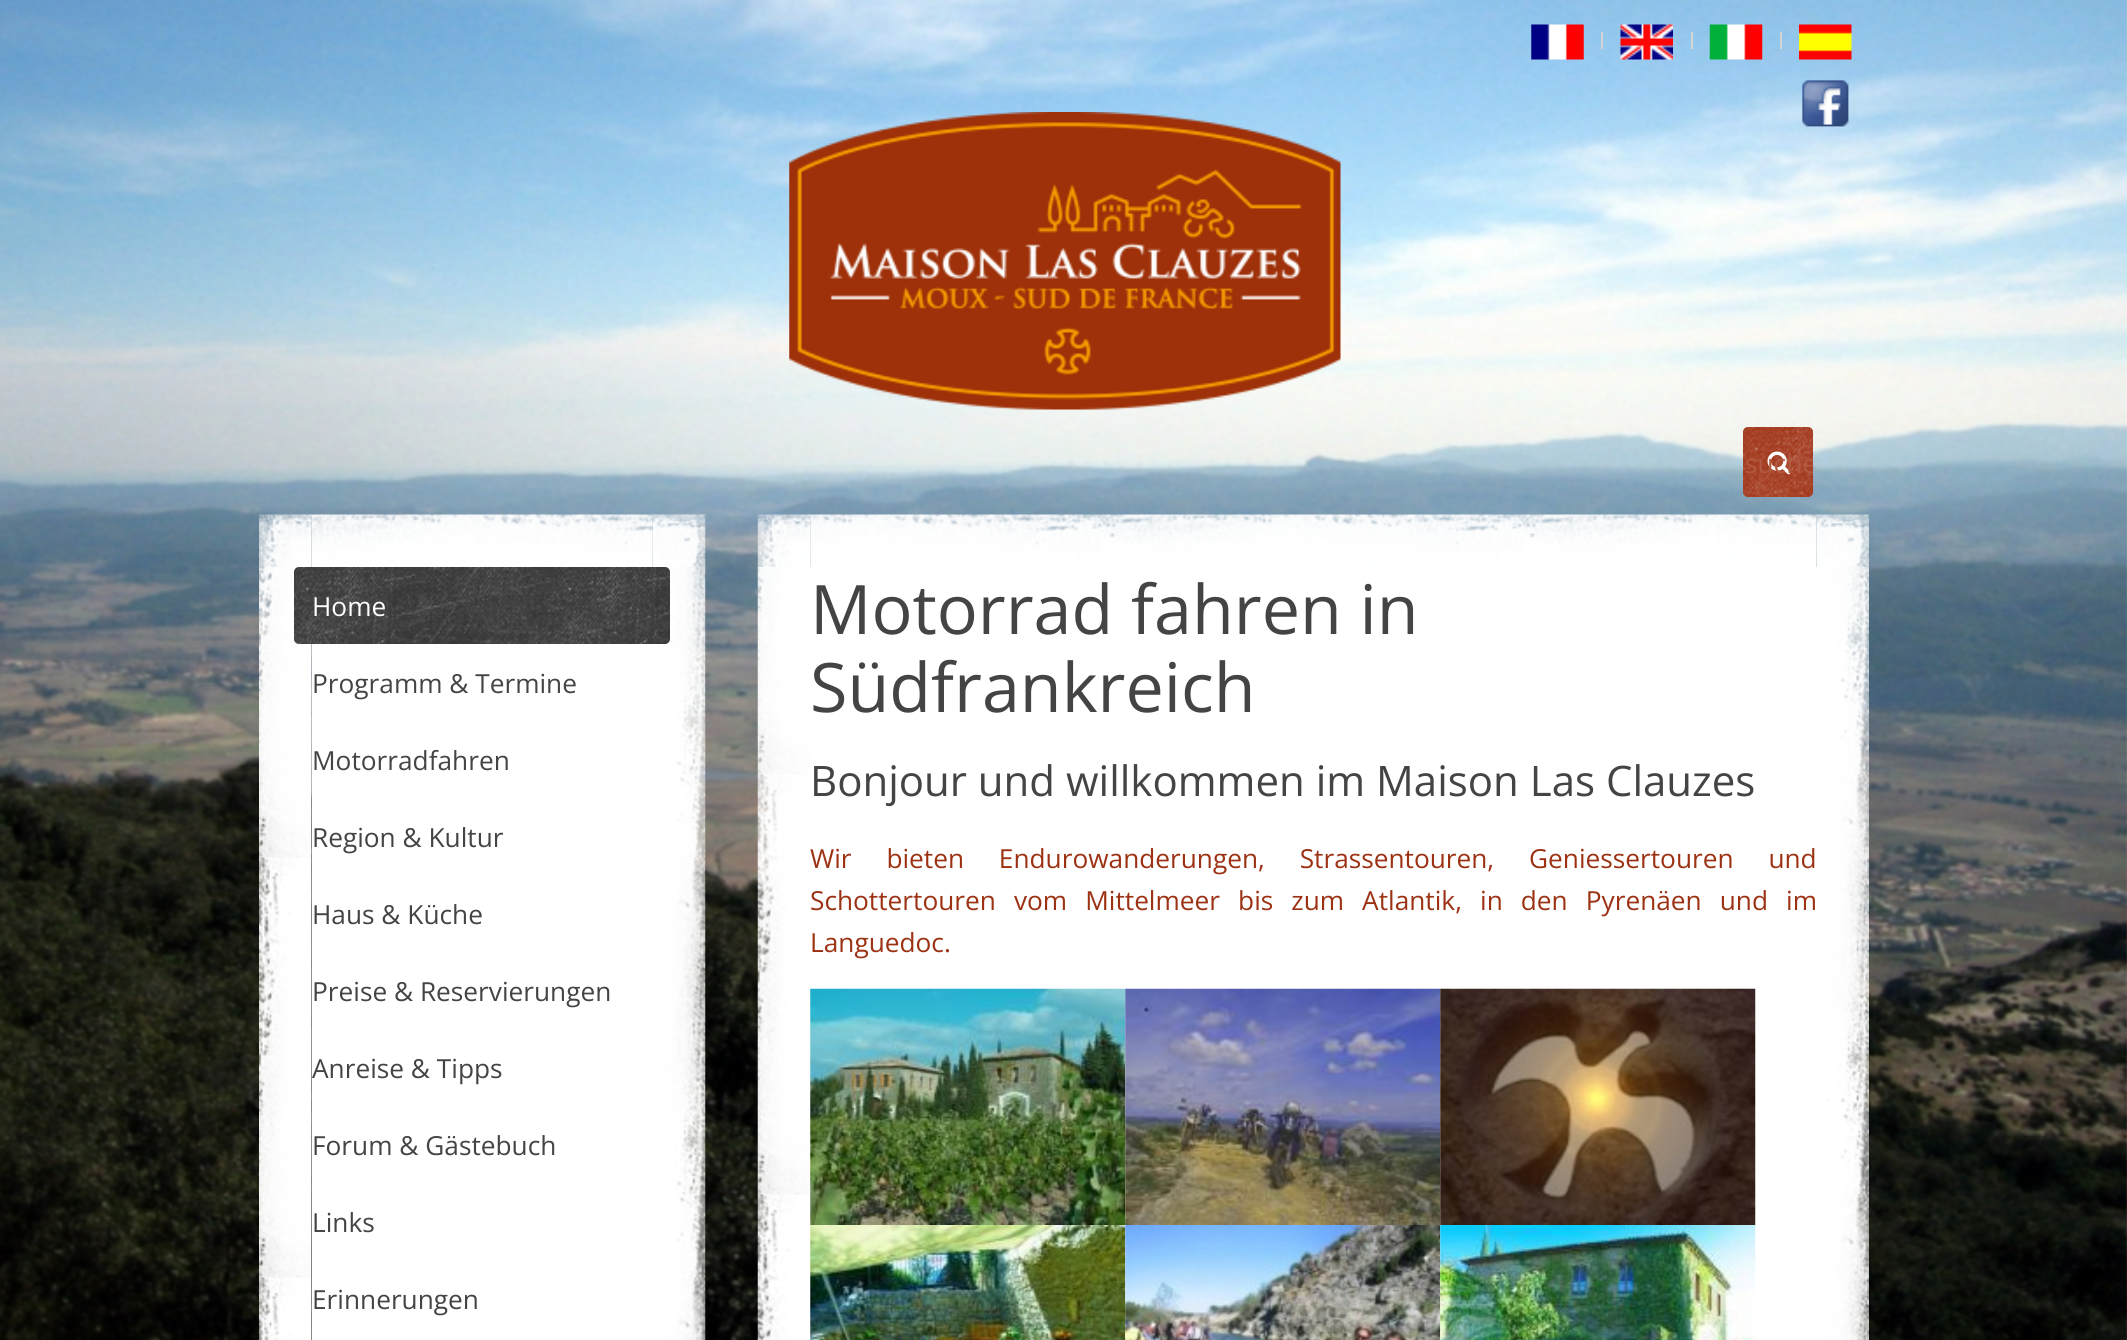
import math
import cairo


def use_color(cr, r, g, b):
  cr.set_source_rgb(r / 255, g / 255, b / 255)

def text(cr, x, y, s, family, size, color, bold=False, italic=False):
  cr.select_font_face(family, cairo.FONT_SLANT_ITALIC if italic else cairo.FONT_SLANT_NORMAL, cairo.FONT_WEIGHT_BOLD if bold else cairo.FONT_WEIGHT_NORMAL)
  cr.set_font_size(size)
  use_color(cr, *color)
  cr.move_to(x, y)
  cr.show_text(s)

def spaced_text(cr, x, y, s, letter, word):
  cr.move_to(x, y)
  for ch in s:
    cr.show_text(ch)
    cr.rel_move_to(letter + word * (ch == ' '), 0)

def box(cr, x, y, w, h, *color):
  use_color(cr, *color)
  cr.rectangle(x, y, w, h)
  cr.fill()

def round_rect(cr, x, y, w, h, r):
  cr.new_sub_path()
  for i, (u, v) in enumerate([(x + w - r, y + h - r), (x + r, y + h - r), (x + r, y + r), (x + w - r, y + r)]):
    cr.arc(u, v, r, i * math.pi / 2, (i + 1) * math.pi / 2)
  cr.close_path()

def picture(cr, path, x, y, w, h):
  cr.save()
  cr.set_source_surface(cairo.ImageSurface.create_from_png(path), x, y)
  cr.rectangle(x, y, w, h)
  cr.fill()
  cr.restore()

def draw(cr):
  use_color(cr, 255, 255, 255)
  cr.paint()
  picture(cr, "img_01.png", 0, 0, 2127, 1340)
  picture(cr, "img_02.png", 1531, 24, 53, 36)
  box(cr, 1601, 32, 2, 17, 212, 212, 212)
  picture(cr, "img_03.png", 1620, 24, 53, 36)
  box(cr, 1691, 32, 2, 17, 212, 212, 212)
  picture(cr, "img_04.png", 1709, 24, 54, 36)
  box(cr, 1780, 32, 2, 17, 212, 212, 212)
  picture(cr, "img_05.png", 1799, 24, 53, 36)
  picture(cr, "img_06.png", 1802, 80, 47, 47)
  picture(cr, "img_07.png", 789, 112, 552, 298)
  use_color(cr, 159, 50, 21)
  round_rect(cr, 1743, 427, 70, 70, 5)
  cr.fill()
  picture(cr, "img_08.png", 1743, 427, 70, 70)
  picture(cr, "img_09.png", 1767, 451, 24, 24)
  box(cr, 312, 644, 341, 696, 255, 255, 255)
  picture(cr, "img_10.png", 259, 514, 447, 826)
  use_color(cr, 51, 51, 51)
  round_rect(cr, 294, 567, 376, 77, 5)
  cr.fill()
  picture(cr, "img_11.png", 294, 567, 376, 77)
  box(cr, 810, 567, 1007, 773, 255, 255, 255)
  picture(cr, "img_12.png", 757, 514, 1112, 826)
  picture(cr, "img_13.png", 810, 988, 316, 237)
  picture(cr, "img_14.png", 1125, 988, 316, 237)
  picture(cr, "img_15.png", 1440, 988, 316, 237)
  picture(cr, "img_16.png", 810, 1225, 316, 115)
  picture(cr, "img_17.png", 1125, 1225, 316, 115)
  picture(cr, "img_18.png", 1440, 1225, 316, 115)
  cr.save()
  cr.rectangle(1745, 445, 68, 35)
  cr.clip()
  text(cr, 1745, 473, "suche", "Open Sans", 26.25, (177, 89, 65))
  cr.restore()
  text(cr, 312, 616, "Home", "Open Sans", 26.25, (255, 255, 255))
  text(cr, 312, 693, "Programm & Termine", "Open Sans", 26.25, (68, 68, 68))
  text(cr, 312, 770, "Motorradfahren", "Open Sans", 26.25, (68, 68, 68))
  text(cr, 312, 847, "Region & Kultur", "Open Sans", 26.25, (68, 68, 68))
  text(cr, 312, 924, "Haus & Küche", "Open Sans", 26.25, (68, 68, 68))
  text(cr, 312, 1001, "Preise & Reservierungen", "Open Sans", 26.25, (68, 68, 68))
  text(cr, 312, 1078, "Anreise & Tipps", "Open Sans", 26.25, (68, 68, 68))
  text(cr, 312, 1155, "Forum & Gästebuch", "Open Sans", 26.25, (68, 68, 68))
  text(cr, 312, 1232, "Links", "Open Sans", 26.25, (68, 68, 68))
  text(cr, 312, 1309, "Erinnerungen", "Open Sans", 26.25, (68, 68, 68))
  text(cr, 810, 634, "Motorrad fahren in", "Open Sans", 68.25, (68, 68, 68))
  text(cr, 810, 712, "Südfrankreich", "Open Sans", 68.25, (68, 68, 68))
  text(cr, 810, 796, "Bonjour und willkommen im Maison Las Clauzes", "Open Sans", 42, (68, 68, 68))
  cr.set_font_size(26.25)
  use_color(cr, 156, 50, 19)
  spaced_text(cr, 810, 868, "Wir bieten Endurowanderungen, Strassentouren, Geniessertouren und", 0, 28)
  spaced_text(cr, 810, 910, "Schottertouren vom Mittelmeer bis zum Atlantik, in den Pyrenäen und im", 0, 11.25)
  text(cr, 810, 952, "Languedoc.", "Open Sans", 26.25, (156, 50, 19))


surface = cairo.ImageSurface(cairo.FORMAT_RGB24, 2127, 1340)
cr = cairo.Context(surface)
options = cairo.FontOptions()
options.set_hint_metrics(cairo.HINT_METRICS_OFF)
options.set_hint_style(cairo.HINT_STYLE_NONE)
cr.set_font_options(options)
cr.set_miter_limit(4)
draw(cr)
surface.write_to_png("out.png")
